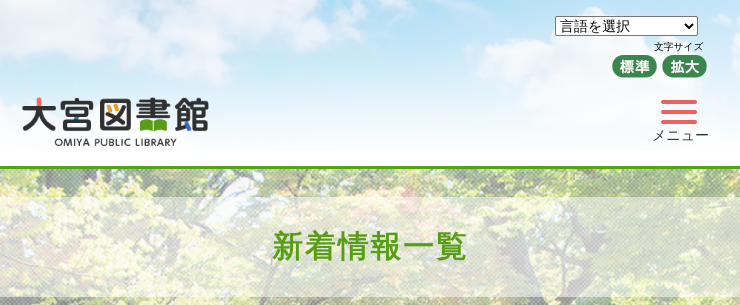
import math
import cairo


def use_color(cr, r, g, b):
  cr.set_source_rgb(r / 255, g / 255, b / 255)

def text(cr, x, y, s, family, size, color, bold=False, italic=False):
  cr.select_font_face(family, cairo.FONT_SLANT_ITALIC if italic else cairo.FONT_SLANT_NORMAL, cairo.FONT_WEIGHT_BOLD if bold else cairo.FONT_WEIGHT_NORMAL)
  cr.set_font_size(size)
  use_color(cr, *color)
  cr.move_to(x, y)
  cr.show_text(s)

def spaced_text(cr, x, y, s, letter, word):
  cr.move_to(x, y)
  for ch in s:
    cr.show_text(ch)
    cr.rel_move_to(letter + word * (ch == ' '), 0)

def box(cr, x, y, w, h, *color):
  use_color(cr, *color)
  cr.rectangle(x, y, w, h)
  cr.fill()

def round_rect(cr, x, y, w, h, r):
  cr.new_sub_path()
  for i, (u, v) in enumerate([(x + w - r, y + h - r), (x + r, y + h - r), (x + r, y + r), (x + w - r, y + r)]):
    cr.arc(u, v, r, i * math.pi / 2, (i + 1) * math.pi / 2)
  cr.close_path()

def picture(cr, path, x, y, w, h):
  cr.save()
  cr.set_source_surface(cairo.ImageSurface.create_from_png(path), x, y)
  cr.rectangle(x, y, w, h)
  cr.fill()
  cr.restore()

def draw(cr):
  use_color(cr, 255, 255, 255)
  cr.paint()
  picture(cr, "img_01.png", 0, 0, 740, 151)
  use_color(cr, 255, 255, 255)
  round_rect(cr, 555.5, 16.5, 142, 19, 1.5)
  cr.fill_preserve()
  use_color(cr, 118, 118, 118)
  cr.set_line_width(1)
  cr.stroke()
  cr.new_path()
  cr.move_to(685, 24)
  cr.line_to(689, 28)
  cr.line_to(693, 24)
  use_color(cr, 0, 0, 0)
  cr.set_line_width(2)
  cr.stroke()
  picture(cr, "img_02.png", 612, 55, 45, 23)
  picture(cr, "img_03.png", 662, 55, 45, 23)
  picture(cr, "img_04.png", 22, 97, 187, 49)
  box(cr, 0, 166, 740, 3, 85, 162, 22)
  use_color(cr, 239, 97, 96)
  round_rect(cr, 661, 100, 36, 4, 2)
  cr.fill()
  round_rect(cr, 661, 110, 36, 4, 2)
  cr.fill()
  round_rect(cr, 661, 120, 36, 4, 2)
  cr.fill()
  picture(cr, "img_05.png", 0, 169, 740, 136)
  cr.set_source_rgba(1, 1, 1, 0.5)
  cr.rectangle(0, 197, 740, 100)
  cr.fill()
  text(cr, 560, 31, "言語を選択", "WenQuanYi Zen Hei Medium", 14, (0, 0, 0))
  text(cr, 654, 50, "文字サイズ", "WenQuanYi Zen Hei Medium", 9.75, (0, 0, 0))
  text(cr, 652, 140, "メニュー", "WenQuanYi Zen Hei Medium", 14, (51, 51, 51))
  cr.select_font_face("WenQuanYi Zen Hei", cairo.FONT_SLANT_NORMAL, cairo.FONT_WEIGHT_BOLD)
  cr.set_font_size(30.75)
  use_color(cr, 87, 157, 21)
  spaced_text(cr, 272, 257, "新着情報一覧", 2, 0)


surface = cairo.ImageSurface(cairo.FORMAT_RGB24, 740, 305)
cr = cairo.Context(surface)
options = cairo.FontOptions()
options.set_hint_metrics(cairo.HINT_METRICS_OFF)
options.set_hint_style(cairo.HINT_STYLE_NONE)
cr.set_font_options(options)
cr.set_miter_limit(4)
draw(cr)
surface.write_to_png("out.png")
